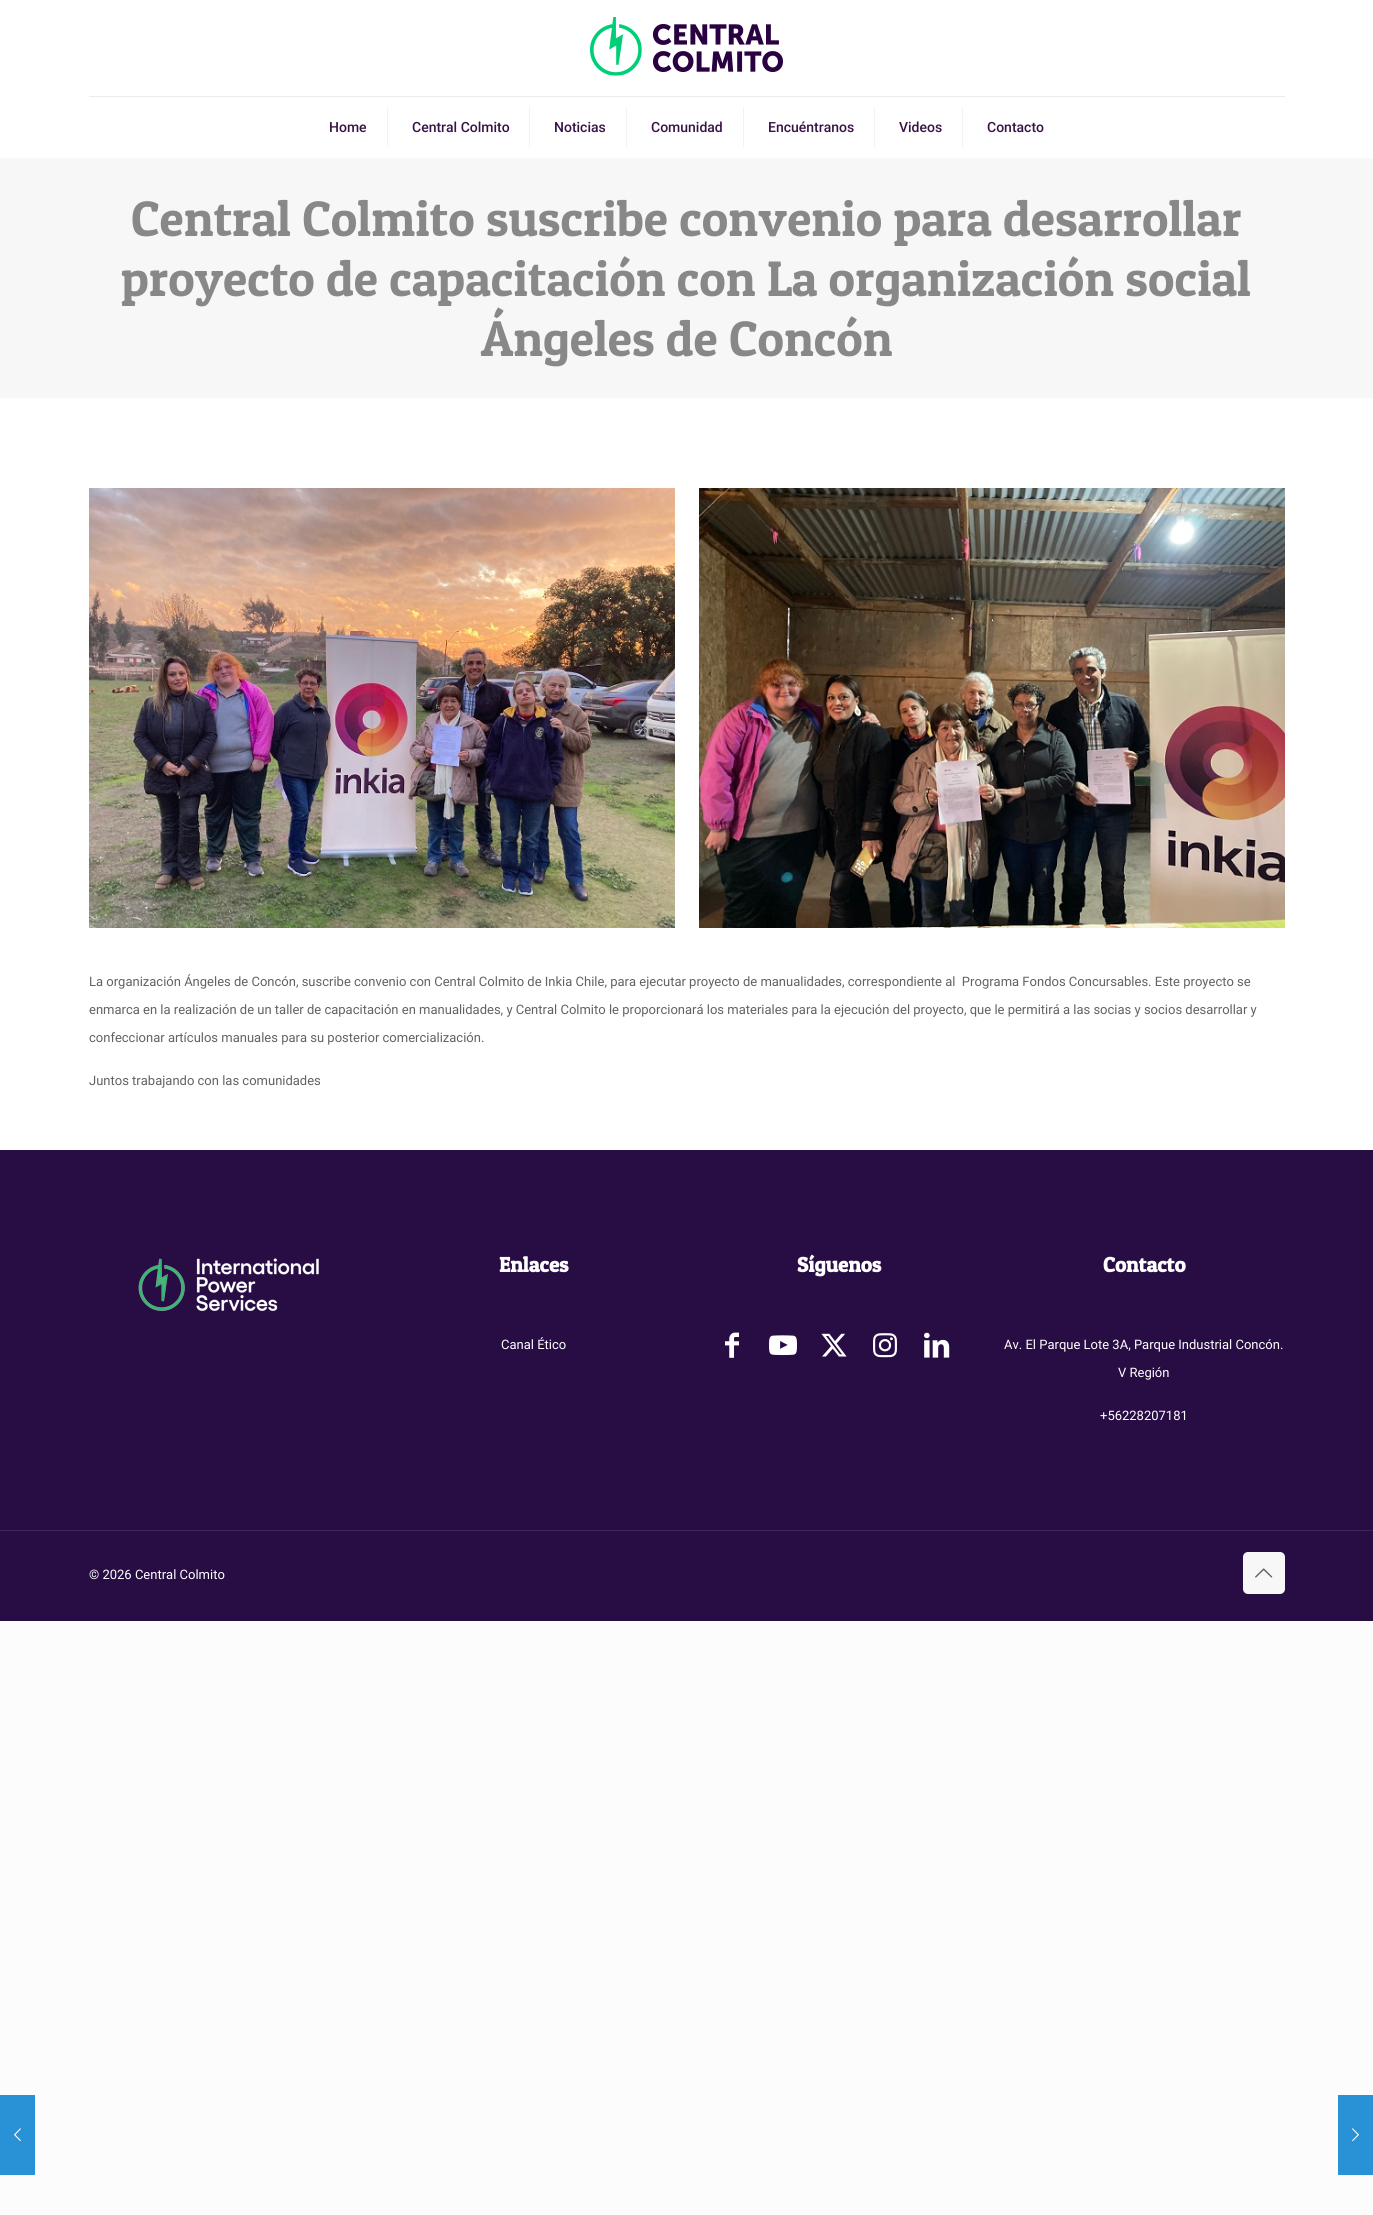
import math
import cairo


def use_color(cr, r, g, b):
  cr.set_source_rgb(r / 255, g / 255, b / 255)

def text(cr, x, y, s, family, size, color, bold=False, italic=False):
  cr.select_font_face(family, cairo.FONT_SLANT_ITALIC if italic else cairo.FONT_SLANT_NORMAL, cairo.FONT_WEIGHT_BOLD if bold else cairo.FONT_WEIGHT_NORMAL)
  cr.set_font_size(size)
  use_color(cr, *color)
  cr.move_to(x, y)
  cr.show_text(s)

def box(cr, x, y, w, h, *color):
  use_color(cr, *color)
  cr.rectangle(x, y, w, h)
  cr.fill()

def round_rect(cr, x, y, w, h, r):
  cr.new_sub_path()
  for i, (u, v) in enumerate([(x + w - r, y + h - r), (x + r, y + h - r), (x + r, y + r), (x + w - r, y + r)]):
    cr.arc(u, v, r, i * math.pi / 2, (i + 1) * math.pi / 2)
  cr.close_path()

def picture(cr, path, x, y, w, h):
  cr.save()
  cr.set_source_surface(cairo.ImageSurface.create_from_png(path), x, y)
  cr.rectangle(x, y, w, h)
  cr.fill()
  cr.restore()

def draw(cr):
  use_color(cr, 252, 252, 252)
  cr.paint()
  box(cr, 0, 398, 1373, 752, 255, 255, 255)
  box(cr, 0, 0, 1373, 158, 255, 255, 255)
  box(cr, 89, 96, 1196, 1, 235, 235, 235)
  picture(cr, "img_01.png", 590, 17, 193, 59)
  box(cr, 387, 107, 1, 40, 242, 242, 242)
  box(cr, 529, 107, 1, 40, 242, 242, 242)
  box(cr, 626, 107, 1, 40, 242, 242, 242)
  box(cr, 743, 107, 1, 40, 242, 242, 242)
  box(cr, 874, 107, 1, 40, 242, 242, 242)
  box(cr, 962, 107, 1, 40, 242, 242, 242)
  box(cr, 0, 158, 1373, 240, 247, 247, 247)
  picture(cr, "img_02.png", 89, 488, 586, 440)
  picture(cr, "img_03.png", 699, 488, 586, 440)
  box(cr, 0, 1150, 1373, 471, 39, 13, 68)
  picture(cr, "img_04.png", 138, 1258, 181, 53)
  picture(cr, "img_05.png", 725, 1332, 14, 26)
  picture(cr, "img_06.png", 769, 1335, 28, 21)
  picture(cr, "img_07.png", 821, 1333, 26, 24)
  picture(cr, "img_08.png", 873, 1333, 24, 25)
  picture(cr, "img_09.png", 924, 1332, 26, 26)
  box(cr, 0, 1530, 1373, 1, 61, 37, 87)
  use_color(cr, 247, 247, 247)
  round_rect(cr, 1243, 1552, 42, 42, 5)
  cr.fill()
  picture(cr, "img_10.png", 1255, 1568, 18, 10)
  box(cr, 0, 2095, 35, 80, 41, 145, 214)
  picture(cr, "img_11.png", 14, 2128, 7, 14)
  box(cr, 1338, 2095, 35, 80, 41, 145, 214)
  picture(cr, "img_12.png", 1352, 2128, 7, 14)
  text(cr, 329, 132, "Home", "Roboto Medium", 14, (55, 18, 71))
  text(cr, 412, 132, "Central Colmito", "Roboto Medium", 14, (55, 18, 71))
  text(cr, 554, 132, "Noticias", "Roboto Medium", 14, (55, 18, 71))
  text(cr, 651, 132, "Comunidad", "Roboto Medium", 14, (55, 18, 71))
  text(cr, 768, 132, "Encuéntranos", "Roboto Medium", 14, (55, 18, 71))
  text(cr, 899, 132, "Videos", "Roboto Medium", 14, (55, 18, 71))
  text(cr, 987, 132, "Contacto", "Roboto Medium", 14, (55, 18, 71))
  text(cr, 131, 236, "Central Colmito suscribe convenio para desarrollar", "Patua One", 50, (136, 136, 136))
  text(cr, 121, 296, "proyecto de capacitación con La organización social", "Patua One", 50, (136, 136, 136))
  text(cr, 481, 356, "Ángeles de Concón", "Patua One", 50, (136, 136, 136))
  text(cr, 89, 986, "La organización Ángeles de Concón, suscribe convenio con Central Colmito de Inkia Chile, para ejecutar proyecto de manualidades, correspondiente al  Programa Fondos Concursables. Este proyecto se", "Roboto", 13, (98, 98, 98))
  text(cr, 89, 1014, "enmarca en la realización de un taller de capacitación en manualidades, y Central Colmito le proporcionará los materiales para la ejecución del proyecto, que le permitirá a las socias y socios desarrollar y", "Roboto", 13, (98, 98, 98))
  text(cr, 89, 1042, "confeccionar artículos manuales para su posterior comercialización.", "Roboto", 13, (98, 98, 98))
  text(cr, 89, 1085, "Juntos trabajando con las comunidades", "Roboto", 13, (98, 98, 98))
  text(cr, 499, 1272, "Enlaces", "Patua One", 21, (255, 255, 255), bold=True)
  text(cr, 501, 1349, "Canal Ético", "Roboto", 13, (255, 255, 255))
  text(cr, 797, 1272, "Síguenos", "Patua One", 21, (255, 255, 255), bold=True)
  text(cr, 1103, 1272, "Contacto", "Patua One", 21, (255, 255, 255), bold=True)
  text(cr, 1004, 1349, "Av. El Parque Lote 3A, Parque Industrial Concón.", "Roboto", 13, (255, 255, 255))
  text(cr, 1118, 1377, "V Región", "Roboto", 13, (255, 255, 255))
  text(cr, 1100, 1420, "+56228207181", "Roboto", 13, (255, 255, 255))
  text(cr, 89, 1579, "© 2026 Central Colmito", "Roboto", 13, (255, 255, 255))


surface = cairo.ImageSurface(cairo.FORMAT_RGB24, 1373, 2215)
cr = cairo.Context(surface)
options = cairo.FontOptions()
options.set_hint_metrics(cairo.HINT_METRICS_OFF)
options.set_hint_style(cairo.HINT_STYLE_NONE)
cr.set_font_options(options)
cr.set_miter_limit(4)
draw(cr)
surface.write_to_png("out.png")
